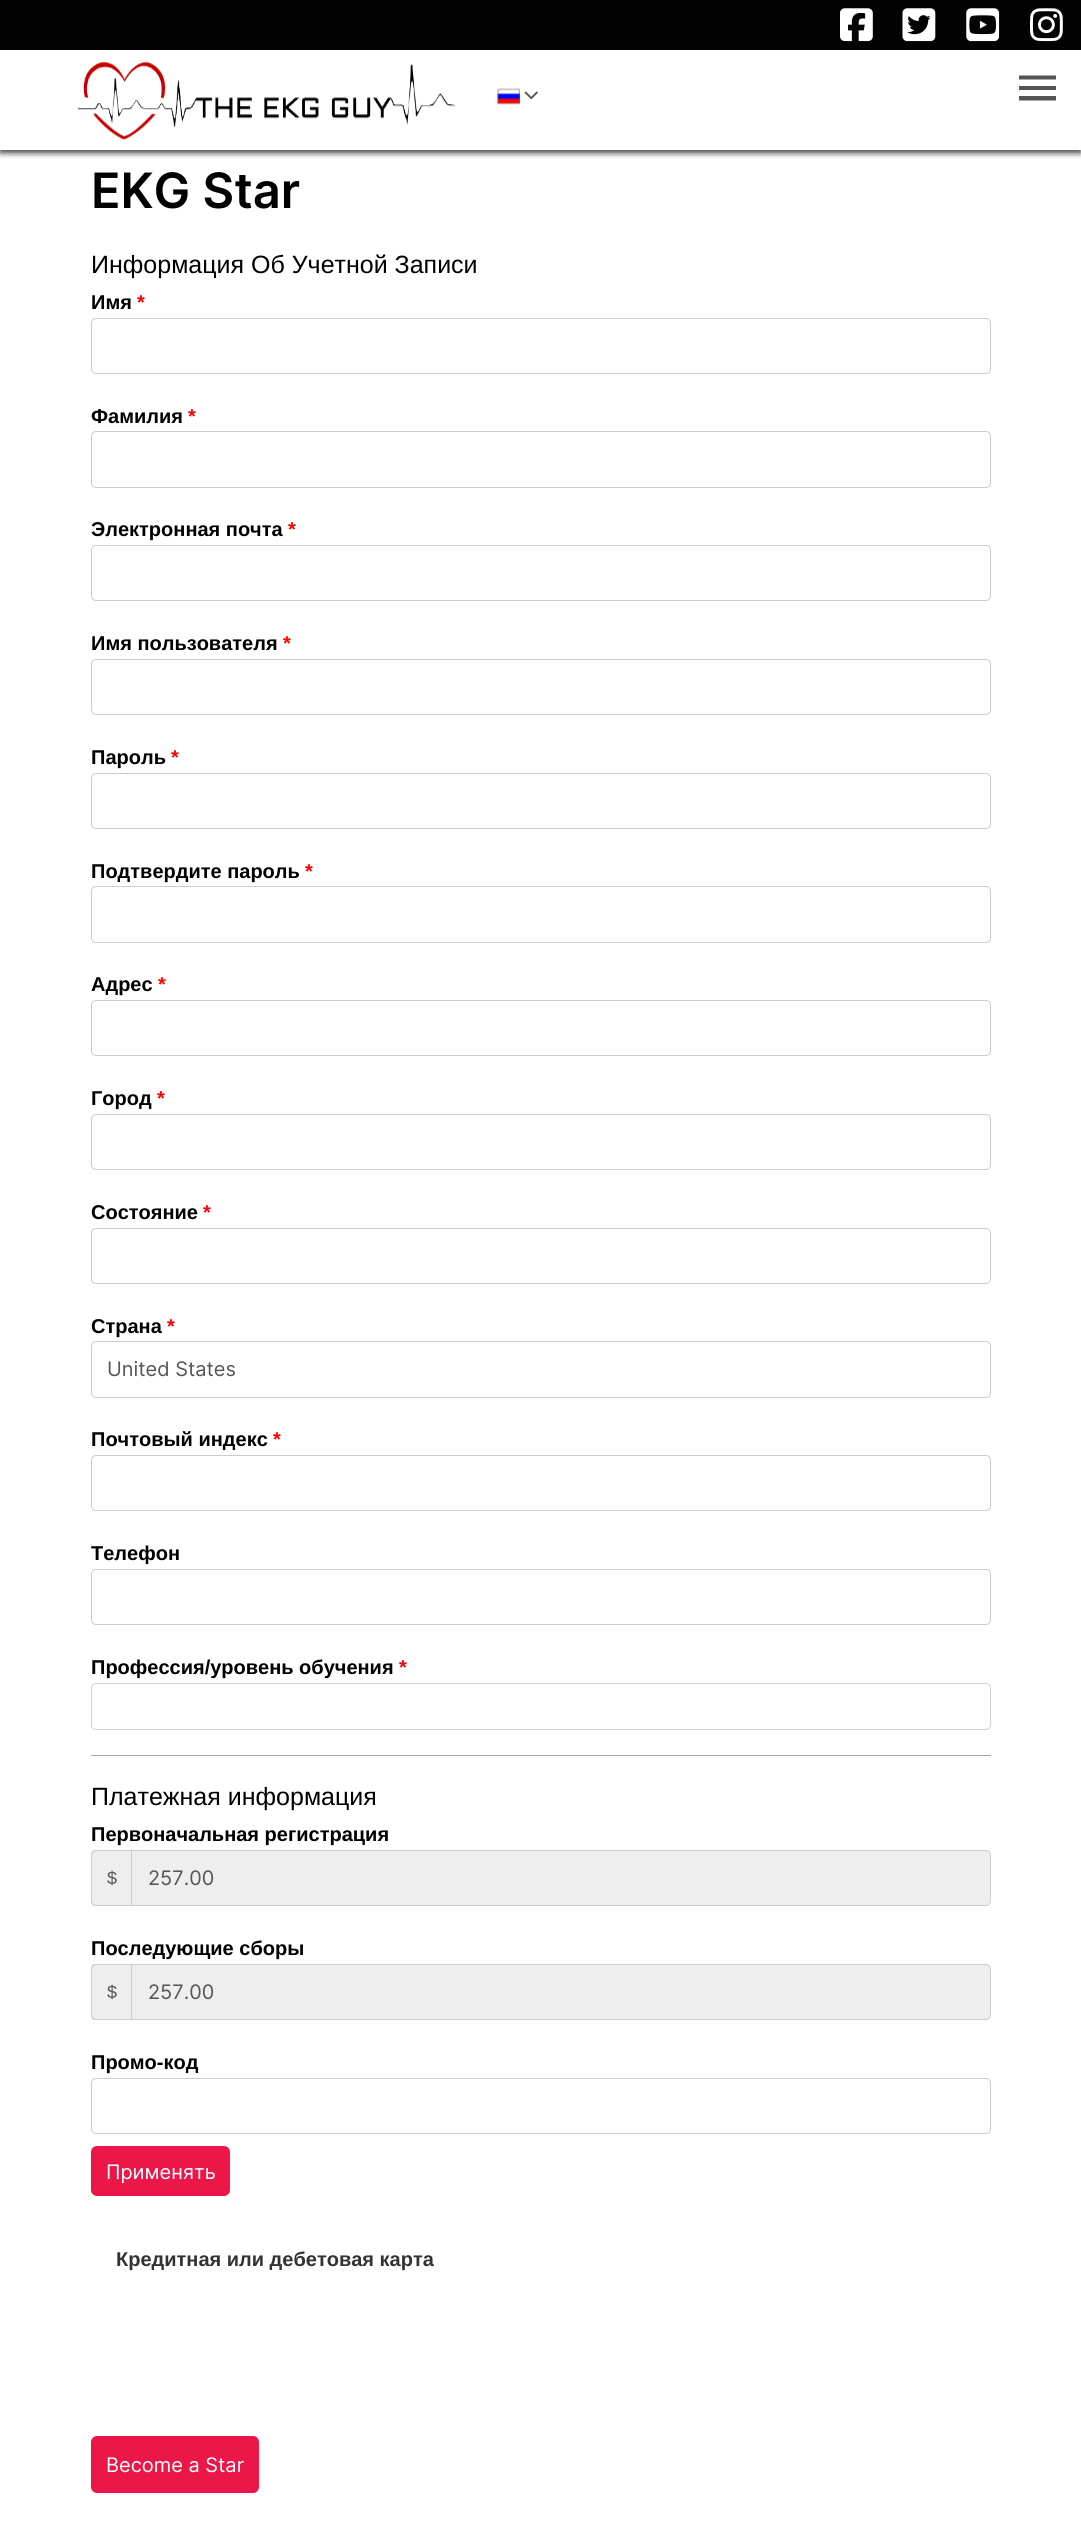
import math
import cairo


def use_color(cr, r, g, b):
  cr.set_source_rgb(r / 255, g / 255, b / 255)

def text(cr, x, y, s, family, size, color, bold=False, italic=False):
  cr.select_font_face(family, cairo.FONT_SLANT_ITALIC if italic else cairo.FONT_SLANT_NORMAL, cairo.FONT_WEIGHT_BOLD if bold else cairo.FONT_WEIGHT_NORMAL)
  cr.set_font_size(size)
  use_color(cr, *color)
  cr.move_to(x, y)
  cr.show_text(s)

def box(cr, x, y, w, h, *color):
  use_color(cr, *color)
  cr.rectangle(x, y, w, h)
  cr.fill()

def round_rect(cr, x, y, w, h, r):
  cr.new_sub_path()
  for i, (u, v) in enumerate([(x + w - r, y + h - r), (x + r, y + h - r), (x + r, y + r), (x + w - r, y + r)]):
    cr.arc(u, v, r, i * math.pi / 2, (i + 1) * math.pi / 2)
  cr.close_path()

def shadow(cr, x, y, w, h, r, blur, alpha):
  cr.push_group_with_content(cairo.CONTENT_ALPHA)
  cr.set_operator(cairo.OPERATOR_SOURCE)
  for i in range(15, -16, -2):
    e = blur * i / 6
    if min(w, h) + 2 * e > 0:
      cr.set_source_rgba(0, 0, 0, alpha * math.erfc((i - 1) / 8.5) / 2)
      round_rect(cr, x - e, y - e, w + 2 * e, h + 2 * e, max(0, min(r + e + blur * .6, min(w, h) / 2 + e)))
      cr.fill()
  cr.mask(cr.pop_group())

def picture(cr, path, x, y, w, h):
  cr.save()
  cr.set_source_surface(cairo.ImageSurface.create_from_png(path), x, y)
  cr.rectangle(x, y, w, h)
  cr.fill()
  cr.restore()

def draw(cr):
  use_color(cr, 255, 255, 255)
  cr.paint()
  cr.save()
  cr.rectangle(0, 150, 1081, 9)
  cr.clip()
  use_color(cr, 0, 0, 0)
  shadow(cr, 0, 3, 1081, 150, 0, 3, 0.75)
  cr.restore()
  box(cr, 0, 0, 1081, 50, 3, 3, 3)
  picture(cr, "img_01.png", 840, 8, 33, 34)
  picture(cr, "img_02.png", 902, 8, 34, 34)
  picture(cr, "img_03.png", 966, 8, 34, 34)
  picture(cr, "img_04.png", 1030, 8, 33, 34)
  picture(cr, "img_05.png", 77, 61, 378, 79)
  picture(cr, "img_06.png", 497, 88, 23, 17)
  picture(cr, "img_07.png", 524, 91, 14, 8)
  use_color(cr, 85, 85, 85)
  cr.new_path()
  cr.move_to(1019, 75.5)
  cr.line_to(1056, 75.5)
  cr.line_to(1056, 79.5)
  cr.line_to(1019, 79.5)
  cr.close_path()
  cr.move_to(1019, 90)
  cr.line_to(1019, 86)
  cr.line_to(1056, 86)
  cr.line_to(1056, 90)
  cr.close_path()
  cr.move_to(1019, 100.5)
  cr.line_to(1019, 96)
  cr.line_to(1056, 96)
  cr.line_to(1056, 100.5)
  cr.close_path()
  cr.fill()
  round_rect(cr, 91.5, 318.5, 899, 55, 4.5)
  use_color(cr, 204, 204, 204)
  cr.set_line_width(1)
  cr.stroke()
  round_rect(cr, 91.5, 431.5, 899, 56, 4.5)
  cr.stroke()
  round_rect(cr, 91.5, 545.5, 899, 55, 4.5)
  cr.stroke()
  round_rect(cr, 91.5, 659.5, 899, 55, 4.5)
  cr.stroke()
  round_rect(cr, 91.5, 773.5, 899, 55, 4.5)
  cr.stroke()
  round_rect(cr, 91.5, 886.5, 899, 56, 4.5)
  cr.stroke()
  round_rect(cr, 91.5, 1000.5, 899, 55, 4.5)
  cr.stroke()
  round_rect(cr, 91.5, 1114.5, 899, 55, 4.5)
  cr.stroke()
  round_rect(cr, 91.5, 1228.5, 899, 55, 4.5)
  cr.stroke()
  round_rect(cr, 91.5, 1341.5, 899, 56, 4.5)
  cr.stroke()
  round_rect(cr, 91.5, 1455.5, 899, 55, 4.5)
  cr.stroke()
  round_rect(cr, 91.5, 1569.5, 899, 55, 4.5)
  cr.stroke()
  round_rect(cr, 91.5, 1683.5, 899, 46, 4.5)
  use_color(cr, 206, 212, 218)
  cr.stroke()
  box(cr, 91, 1755, 900, 1, 166, 166, 166)
  use_color(cr, 238, 238, 238)
  cr.new_path()
  cr.move_to(96, 1850)
  cr.line_to(131, 1850)
  cr.line_to(131, 1906)
  cr.line_to(96, 1906)
  cr.curve_to(93, 1906, 91, 1904, 91, 1901)
  cr.line_to(91, 1855)
  cr.curve_to(91, 1852, 93, 1850, 96, 1850)
  cr.close_path()
  cr.fill()
  use_color(cr, 204, 204, 204)
  cr.set_fill_rule(cairo.FILL_RULE_EVEN_ODD)
  cr.new_path()
  cr.move_to(96, 1850)
  cr.line_to(131, 1850)
  cr.line_to(131, 1906)
  cr.line_to(96, 1906)
  cr.curve_to(93, 1906, 91, 1904, 91, 1901)
  cr.line_to(91, 1855)
  cr.curve_to(91, 1852, 93, 1850, 96, 1850)
  cr.close_path()
  cr.move_to(96, 1851)
  cr.line_to(131, 1851)
  cr.line_to(131, 1905)
  cr.line_to(96, 1905)
  cr.curve_to(94, 1905, 92, 1903, 92, 1901)
  cr.line_to(92, 1855)
  cr.curve_to(92, 1853, 94, 1851, 96, 1851)
  cr.close_path()
  cr.fill()
  use_color(cr, 238, 238, 238)
  cr.new_path()
  cr.move_to(131.5, 1850.5)
  cr.line_to(986, 1850.5)
  cr.curve_to(988.5, 1850.5, 990.5, 1852.5, 990.5, 1855)
  cr.line_to(990.5, 1901)
  cr.curve_to(990.5, 1903.5, 988.5, 1905.5, 986, 1905.5)
  cr.line_to(131.5, 1905.5)
  cr.close_path()
  cr.fill_preserve()
  use_color(cr, 204, 204, 204)
  cr.stroke()
  use_color(cr, 238, 238, 238)
  cr.new_path()
  cr.move_to(96, 1964)
  cr.line_to(131, 1964)
  cr.line_to(131, 2020)
  cr.line_to(96, 2020)
  cr.curve_to(93, 2020, 91, 2018, 91, 2015)
  cr.line_to(91, 1969)
  cr.curve_to(91, 1966, 93, 1964, 96, 1964)
  cr.close_path()
  cr.fill()
  use_color(cr, 204, 204, 204)
  cr.new_path()
  cr.move_to(96, 1964)
  cr.line_to(131, 1964)
  cr.line_to(131, 2020)
  cr.line_to(96, 2020)
  cr.curve_to(93, 2020, 91, 2018, 91, 2015)
  cr.line_to(91, 1969)
  cr.curve_to(91, 1966, 93, 1964, 96, 1964)
  cr.close_path()
  cr.move_to(96, 1965)
  cr.line_to(131, 1965)
  cr.line_to(131, 2019)
  cr.line_to(96, 2019)
  cr.curve_to(94, 2019, 92, 2017, 92, 2015)
  cr.line_to(92, 1969)
  cr.curve_to(92, 1967, 94, 1965, 96, 1965)
  cr.close_path()
  cr.fill()
  use_color(cr, 238, 238, 238)
  cr.new_path()
  cr.move_to(131.5, 1964.5)
  cr.line_to(986, 1964.5)
  cr.curve_to(988.5, 1964.5, 990.5, 1966.5, 990.5, 1969)
  cr.line_to(990.5, 2015)
  cr.curve_to(990.5, 2017.5, 988.5, 2019.5, 986, 2019.5)
  cr.line_to(131.5, 2019.5)
  cr.close_path()
  cr.fill_preserve()
  use_color(cr, 204, 204, 204)
  cr.stroke()
  round_rect(cr, 91.5, 2078.5, 899, 55, 4.5)
  cr.stroke()
  use_color(cr, 235, 23, 72)
  round_rect(cr, 91, 2146, 139, 50, 6)
  cr.fill()
  round_rect(cr, 91, 2436, 168, 57, 6)
  cr.fill()
  text(cr, 91, 208, "EKG Star", "Inter SemiBold", 48.75, (0, 0, 0))
  text(cr, 91, 273, "Информация Об Учетной Записи", "Liberation Sans", 25, (0, 0, 0))
  text(cr, 91, 309, "Имя", "Liberation Sans", 20, (0, 0, 0), bold=True)
  text(cr, 137, 309, "*", "Liberation Sans", 20, (255, 0, 0), bold=True)
  text(cr, 91, 423, "Фамилия", "Liberation Sans", 20, (0, 0, 0), bold=True)
  text(cr, 188, 423, "*", "Liberation Sans", 20, (255, 0, 0), bold=True)
  text(cr, 91, 536, "Электронная почта", "Liberation Sans", 20, (0, 0, 0), bold=True)
  text(cr, 288, 536, "*", "Liberation Sans", 20, (255, 0, 0), bold=True)
  text(cr, 91, 650, "Имя пользователя", "Liberation Sans", 20, (0, 0, 0), bold=True)
  text(cr, 283, 650, "*", "Liberation Sans", 20, (255, 0, 0), bold=True)
  text(cr, 91, 764, "Пароль", "Liberation Sans", 20, (0, 0, 0), bold=True)
  text(cr, 171, 764, "*", "Liberation Sans", 20, (255, 0, 0), bold=True)
  text(cr, 91, 878, "Подтвердите пароль", "Liberation Sans", 20, (0, 0, 0), bold=True)
  text(cr, 305, 878, "*", "Liberation Sans", 20, (255, 0, 0), bold=True)
  text(cr, 91, 991, "Адрес", "Liberation Sans", 20, (0, 0, 0), bold=True)
  text(cr, 158, 991, "*", "Liberation Sans", 20, (255, 0, 0), bold=True)
  text(cr, 91, 1105, "Город", "Liberation Sans", 20, (0, 0, 0), bold=True)
  text(cr, 157, 1105, "*", "Liberation Sans", 20, (255, 0, 0), bold=True)
  text(cr, 91, 1219, "Состояние", "Liberation Sans", 20, (0, 0, 0), bold=True)
  text(cr, 203, 1219, "*", "Liberation Sans", 20, (255, 0, 0), bold=True)
  text(cr, 91, 1333, "Страна", "Liberation Sans", 20, (0, 0, 0), bold=True)
  text(cr, 167, 1333, "*", "Liberation Sans", 20, (255, 0, 0), bold=True)
  text(cr, 107, 1376, "United States", "Inter", 20, (85, 85, 85))
  text(cr, 91, 1446, "Почтовый индекс", "Liberation Sans", 20, (0, 0, 0), bold=True)
  text(cr, 273, 1446, "*", "Liberation Sans", 20, (255, 0, 0), bold=True)
  text(cr, 91, 1560, "Телефон", "Liberation Sans", 20, (0, 0, 0), bold=True)
  text(cr, 91, 1674, "Профессия/уровень обучения", "Liberation Sans", 20, (0, 0, 0), bold=True)
  text(cr, 399, 1674, "*", "Liberation Sans", 20, (255, 0, 0), bold=True)
  text(cr, 91, 1805, "Платежная информация", "Liberation Sans", 25, (0, 0, 0))
  text(cr, 91, 1841, "Первоначальная регистрация", "Liberation Sans", 20, (0, 0, 0), bold=True)
  text(cr, 107, 1884, "$", "Liberation Sans", 18, (85, 85, 85))
  text(cr, 148, 1885, "257.00", "Inter", 20, (85, 85, 85))
  text(cr, 91, 1955, "Последующие сборы", "Liberation Sans", 20, (0, 0, 0), bold=True)
  text(cr, 107, 1998, "$", "Liberation Sans", 18, (85, 85, 85))
  text(cr, 148, 1999, "257.00", "Inter", 20, (85, 85, 85))
  text(cr, 91, 2069, "Промо-код", "Liberation Sans", 20, (0, 0, 0), bold=True)
  text(cr, 106, 2179, "Применять", "Inter", 20, (255, 255, 255))
  text(cr, 116, 2266, "Кредитная или дебетовая карта", "Liberation Sans", 20, (51, 51, 51), bold=True)
  text(cr, 106, 2472, "Become a Star", "Inter", 20, (255, 255, 255))


surface = cairo.ImageSurface(cairo.FORMAT_RGB24, 1081, 2521)
cr = cairo.Context(surface)
options = cairo.FontOptions()
options.set_hint_metrics(cairo.HINT_METRICS_OFF)
options.set_hint_style(cairo.HINT_STYLE_NONE)
cr.set_font_options(options)
cr.set_miter_limit(4)
draw(cr)
surface.write_to_png("out.png")
